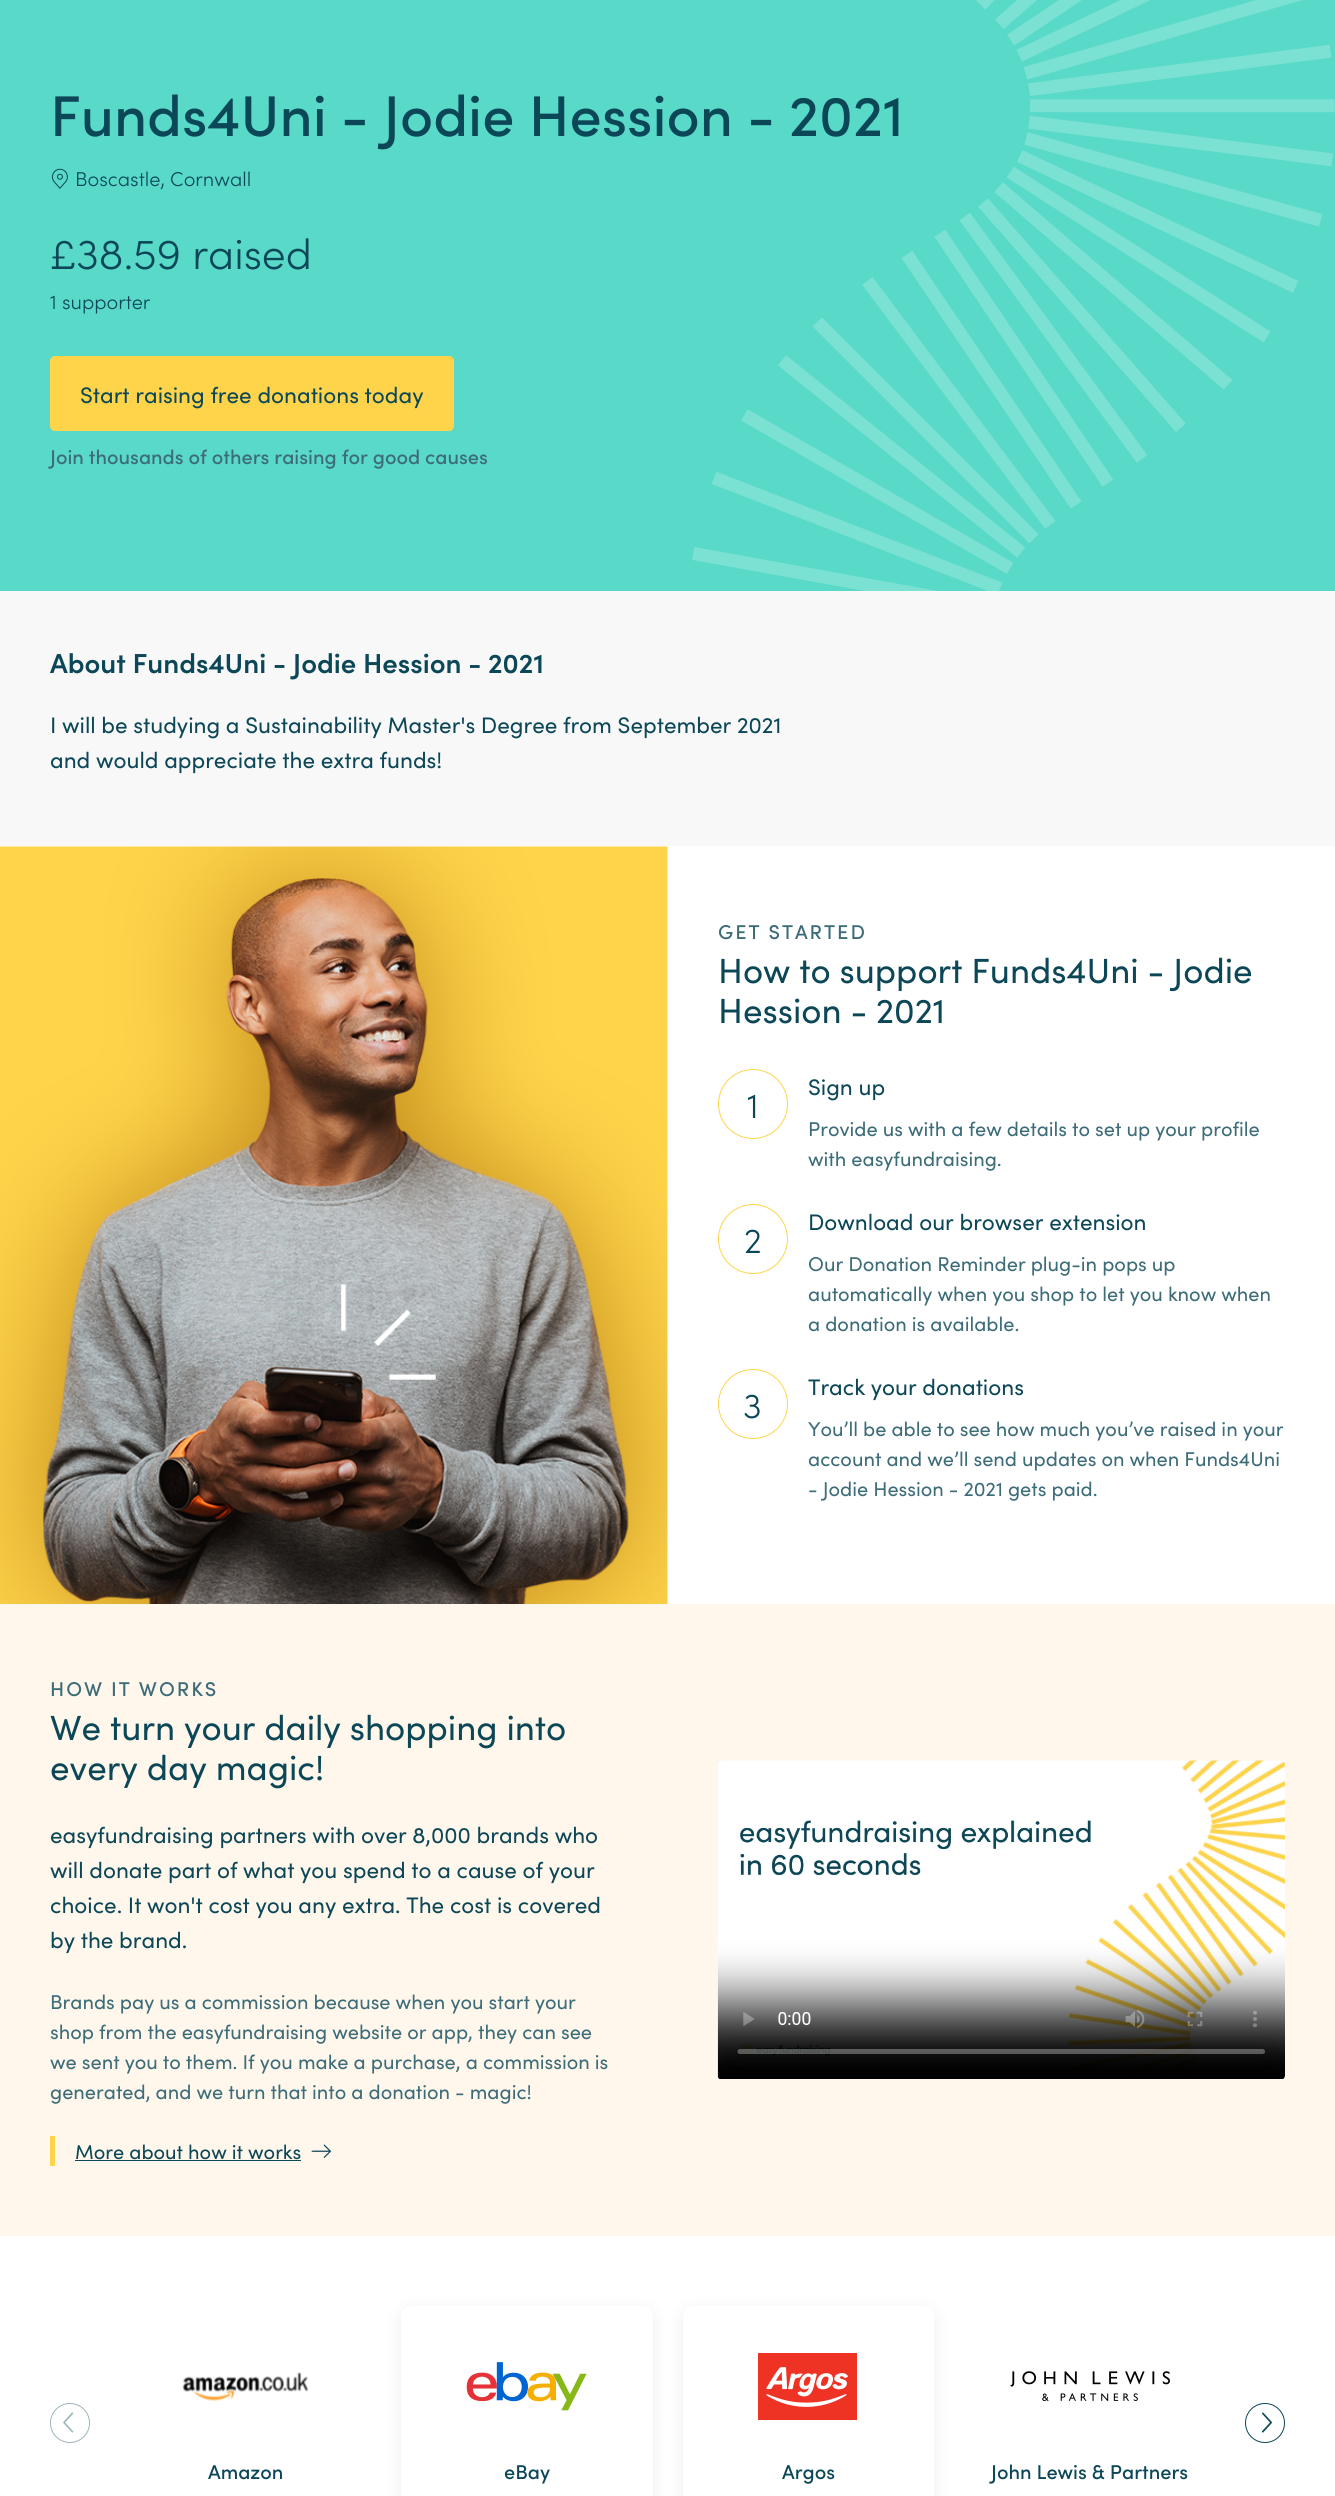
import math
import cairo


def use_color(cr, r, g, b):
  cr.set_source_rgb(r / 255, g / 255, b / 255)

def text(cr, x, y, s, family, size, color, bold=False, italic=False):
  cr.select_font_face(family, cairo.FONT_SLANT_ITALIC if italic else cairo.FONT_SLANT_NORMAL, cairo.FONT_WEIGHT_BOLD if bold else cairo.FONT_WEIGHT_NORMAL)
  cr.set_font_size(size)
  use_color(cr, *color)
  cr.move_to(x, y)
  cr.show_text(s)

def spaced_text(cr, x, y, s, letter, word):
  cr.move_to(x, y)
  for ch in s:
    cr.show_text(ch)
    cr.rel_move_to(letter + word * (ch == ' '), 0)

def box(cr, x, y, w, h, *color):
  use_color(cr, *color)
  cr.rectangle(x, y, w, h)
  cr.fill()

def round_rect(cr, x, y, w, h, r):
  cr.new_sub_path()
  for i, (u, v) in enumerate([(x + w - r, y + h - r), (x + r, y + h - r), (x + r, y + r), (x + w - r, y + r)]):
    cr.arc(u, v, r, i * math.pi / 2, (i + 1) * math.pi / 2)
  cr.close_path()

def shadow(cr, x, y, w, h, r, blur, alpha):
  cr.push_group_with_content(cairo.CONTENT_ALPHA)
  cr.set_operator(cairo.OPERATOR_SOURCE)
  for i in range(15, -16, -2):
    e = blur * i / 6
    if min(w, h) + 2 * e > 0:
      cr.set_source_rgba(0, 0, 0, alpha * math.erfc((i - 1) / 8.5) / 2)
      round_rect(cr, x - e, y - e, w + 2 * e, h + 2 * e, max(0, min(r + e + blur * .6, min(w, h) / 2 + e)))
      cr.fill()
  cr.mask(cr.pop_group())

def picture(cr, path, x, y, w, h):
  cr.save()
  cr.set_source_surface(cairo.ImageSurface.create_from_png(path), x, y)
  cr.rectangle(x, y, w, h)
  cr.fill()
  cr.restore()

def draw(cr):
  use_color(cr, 255, 255, 255)
  cr.paint()
  box(cr, 0, 0, 1335, 591, 89, 217, 200)
  picture(cr, "img_01.png", 51, 168, 17, 21)
  use_color(cr, 255, 212, 74)
  round_rect(cr, 50, 356, 404, 75, 5)
  cr.fill()
  box(cr, 0, 591, 1335, 255, 248, 248, 248)
  picture(cr, "img_03.png", 0, 846, 668, 758)
  cr.arc(753, 1104, 34.5, 0, 2 * math.pi)
  use_color(cr, 255, 212, 74)
  cr.set_line_width(1)
  cr.stroke()
  cr.arc(753, 1239, 34.5, 0, 2 * math.pi)
  cr.stroke()
  cr.arc(753, 1404, 34.5, 0, 2 * math.pi)
  cr.stroke()
  box(cr, 0, 1604, 1335, 632, 255, 247, 235)
  box(cr, 50, 2136, 5, 30, 255, 212, 74)
  box(cr, 75, 2160, 226, 1, 12, 71, 88)
  picture(cr, "img_04.png", 311, 2144, 20, 14)
  picture(cr, "img_05.png", 717, 1760, 568, 319)
  cr.arc(70, 2423, 19.5, 0, 2 * math.pi)
  use_color(cr, 158, 181, 188)
  cr.stroke()
  picture(cr, "img_06.png", 63, 2412, 11, 21)
  cr.arc(1265, 2423, 19.5, 0, 2 * math.pi)
  use_color(cr, 12, 71, 88)
  cr.stroke()
  picture(cr, "img_07.png", 1262, 2412, 10, 21)
  picture(cr, "img_08.png", 182, 2372, 127, 30)
  use_color(cr, 0, 0, 0)
  shadow(cr, 401, 2311, 252, 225, 10, 10, 0.07)
  use_color(cr, 255, 255, 255)
  round_rect(cr, 401, 2306, 252, 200, 10)
  cr.fill()
  picture(cr, "img_09.png", 466, 2362, 121, 49)
  use_color(cr, 0, 0, 0)
  shadow(cr, 683, 2311, 251, 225, 10, 10, 0.07)
  use_color(cr, 255, 255, 255)
  round_rect(cr, 683, 2306, 251, 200, 10)
  cr.fill()
  picture(cr, "img_10.png", 758, 2353, 99, 67)
  picture(cr, "img_11.png", 1010, 2371, 160, 30)
  text(cr, 50, 136, "Funds4Uni - Jodie Hession - 2021", "Sofia Medium", 57.5, (12, 71, 88))
  text(cr, 75, 186, "Boscastle, Cornwall", "Sofia Light", 20, (12, 71, 88))
  text(cr, 50, 269, "£38.59 raised", "Sofia Light", 42.5, (12, 71, 88))
  text(cr, 50, 309, "1 supporter", "Sofia Light", 20, (12, 71, 88))
  text(cr, 80, 403, "Start raising free donations today", "Sofia", 22.5, (12, 71, 88))
  text(cr, 50, 464, "Join thousands of others raising for good causes", "Sofia Medium", 20, (61, 108, 121))
  picture(cr, "img_02.png", 692, 0, 643, 591)
  text(cr, 50, 673, "About Funds4Uni - Jodie Hession - 2021", "Sofia SemiBold", 27.5, (12, 71, 88))
  text(cr, 50, 733, "I will be studying a Sustainability Master's Degree from September 2021", "Sofia", 22.5, (12, 71, 88))
  text(cr, 50, 768, "and would appreciate the extra funds!", "Sofia", 22.5, (12, 71, 88))
  cr.select_font_face("Sofia Medium")
  cr.set_font_size(20)
  use_color(cr, 61, 108, 121)
  spaced_text(cr, 718, 939, "GET STARTED", 2, 0)
  text(cr, 718, 983, "How to support Funds4Uni - Jodie", "Sofia", 35, (12, 71, 88))
  text(cr, 718, 1023, "Hession - 2021", "Sofia", 35, (12, 71, 88))
  text(cr, 747, 1118, "1", "Sofia Light", 35, (12, 71, 88))
  text(cr, 808, 1095, "Sign up", "Sofia", 22.5, (12, 71, 88))
  text(cr, 808, 1136, "Provide us with a few details to set up your profile", "Sofia", 20, (61, 108, 121))
  text(cr, 808, 1166, "with easyfundraising.", "Sofia", 20, (61, 108, 121))
  text(cr, 744, 1253, "2", "Sofia Light", 35, (12, 71, 88))
  text(cr, 808, 1230, "Download our browser extension", "Sofia", 22.5, (12, 71, 88))
  text(cr, 808, 1271, "Our Donation Reminder plug-in pops up", "Sofia", 20, (61, 108, 121))
  text(cr, 808, 1301, "automatically when you shop to let you know when", "Sofia", 20, (61, 108, 121))
  text(cr, 808, 1331, "a donation is available.", "Sofia", 20, (61, 108, 121))
  text(cr, 743, 1418, "3", "Sofia Light", 35, (12, 71, 88))
  text(cr, 808, 1395, "Track your donations", "Sofia", 22.5, (12, 71, 88))
  text(cr, 808, 1436, "You’ll be able to see how much you’ve raised in your", "Sofia", 20, (61, 108, 121))
  text(cr, 808, 1466, "account and we’ll send updates on when Funds4Uni", "Sofia", 20, (61, 108, 121))
  text(cr, 808, 1496, "- Jodie Hession - 2021 gets paid.", "Sofia", 20, (61, 108, 121))
  cr.select_font_face("Sofia Medium")
  spaced_text(cr, 50, 1696, "HOW IT WORKS", 2, 0)
  text(cr, 50, 1740, "We turn your daily shopping into", "Sofia", 35, (12, 71, 88))
  text(cr, 50, 1780, "every day magic!", "Sofia", 35, (12, 71, 88))
  text(cr, 50, 1843, "easyfundraising partners with over 8,000 brands who", "Sofia", 22.5, (12, 71, 88))
  text(cr, 50, 1878, "will donate part of what you spend to a cause of your", "Sofia", 22.5, (12, 71, 88))
  text(cr, 50, 1913, "choice. It won't cost you any extra. The cost is covered", "Sofia", 22.5, (12, 71, 88))
  text(cr, 50, 1948, "by the brand.", "Sofia", 22.5, (12, 71, 88))
  text(cr, 50, 2009, "Brands pay us a commission because when you start your", "Sofia", 20, (61, 108, 121))
  text(cr, 50, 2039, "shop from the easyfundraising website or app, they can see", "Sofia", 20, (61, 108, 121))
  text(cr, 50, 2069, "we sent you to them. If you make a purchase, a commission is", "Sofia", 20, (61, 108, 121))
  text(cr, 50, 2099, "generated, and we turn that into a donation - magic!", "Sofia", 20, (61, 108, 121))
  text(cr, 75, 2159, "More about how it works", "Sofia", 20, (12, 71, 88))
  text(cr, 208, 2479, "Amazon", "Sofia Medium", 20, (12, 71, 88))
  text(cr, 504, 2479, "eBay", "Sofia Medium", 20, (12, 71, 88))
  text(cr, 782, 2479, "Argos", "Sofia Medium", 20, (12, 71, 88))
  text(cr, 991, 2479, "John Lewis & Partners", "Sofia Medium", 20, (12, 71, 88))


surface = cairo.ImageSurface(cairo.FORMAT_RGB24, 1335, 2496)
cr = cairo.Context(surface)
options = cairo.FontOptions()
options.set_hint_metrics(cairo.HINT_METRICS_OFF)
options.set_hint_style(cairo.HINT_STYLE_NONE)
cr.set_font_options(options)
cr.set_miter_limit(4)
draw(cr)
surface.write_to_png("out.png")
